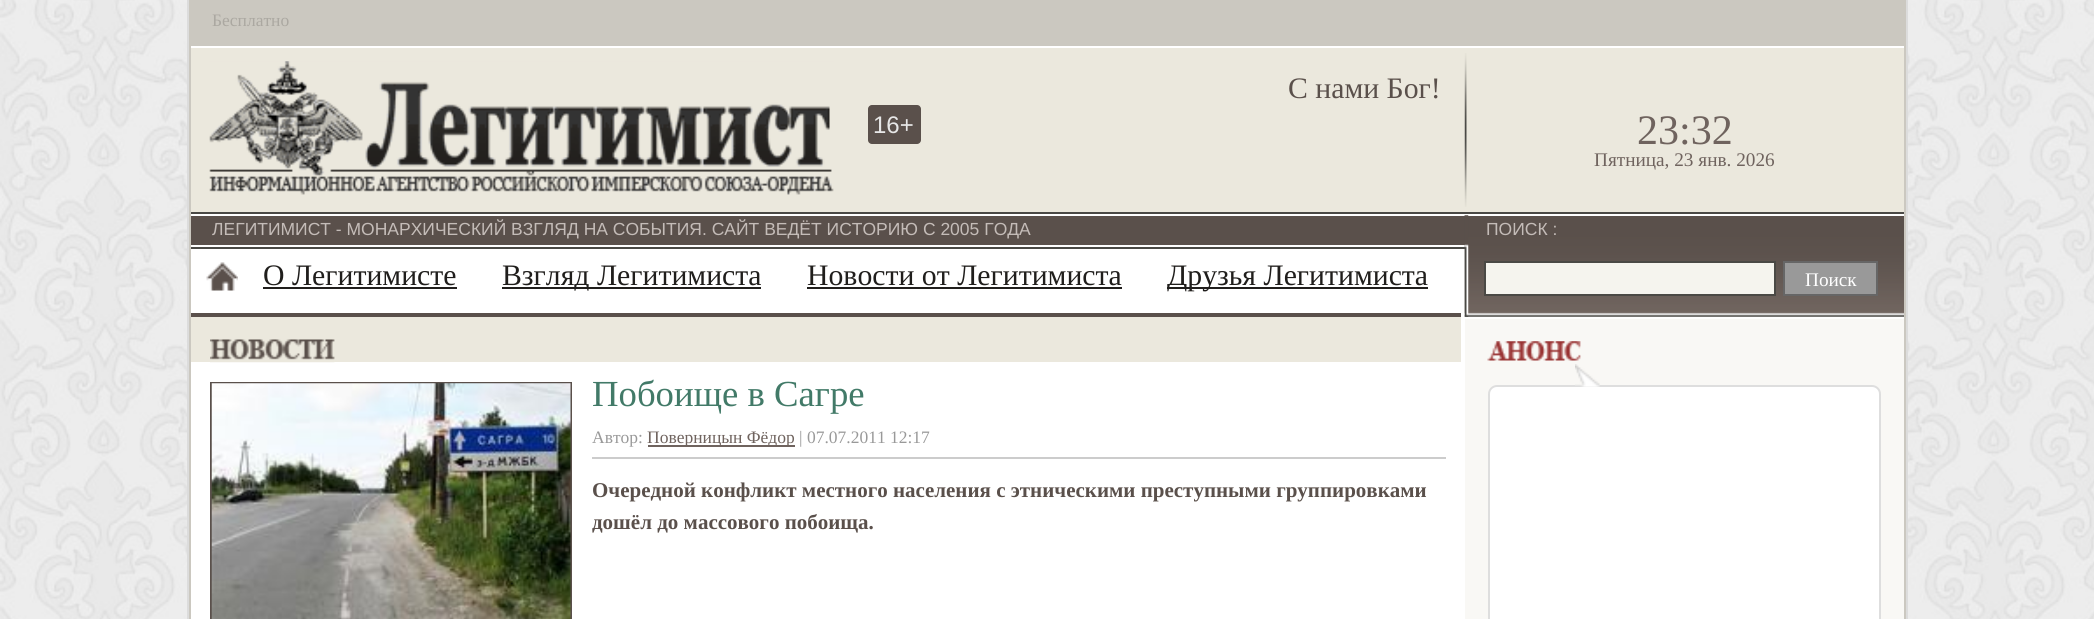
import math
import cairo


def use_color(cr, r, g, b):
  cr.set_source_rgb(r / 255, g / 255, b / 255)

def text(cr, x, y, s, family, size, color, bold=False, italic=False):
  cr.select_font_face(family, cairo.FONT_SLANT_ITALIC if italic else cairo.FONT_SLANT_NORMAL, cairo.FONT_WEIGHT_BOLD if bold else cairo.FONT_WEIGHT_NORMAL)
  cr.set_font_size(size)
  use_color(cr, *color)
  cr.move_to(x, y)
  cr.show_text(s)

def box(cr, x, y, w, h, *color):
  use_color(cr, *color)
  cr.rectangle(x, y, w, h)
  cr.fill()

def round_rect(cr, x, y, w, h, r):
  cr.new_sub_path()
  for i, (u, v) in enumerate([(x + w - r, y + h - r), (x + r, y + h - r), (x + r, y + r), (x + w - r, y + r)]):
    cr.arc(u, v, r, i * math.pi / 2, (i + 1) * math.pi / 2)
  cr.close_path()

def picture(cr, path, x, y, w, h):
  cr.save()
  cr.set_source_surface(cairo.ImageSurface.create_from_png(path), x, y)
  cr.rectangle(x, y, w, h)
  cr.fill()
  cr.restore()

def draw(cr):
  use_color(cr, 255, 255, 255)
  cr.paint()
  picture(cr, "img_01.png", 0, 0, 2094, 619)
  box(cr, 1906, 0, 2, 619, 220, 220, 220)
  box(cr, 187, 0, 2, 619, 220, 220, 220)
  box(cr, 189, 0, 1717, 619, 203, 200, 192)
  box(cr, 191, 46, 1713, 2, 255, 255, 255)
  box(cr, 1465, 316, 439, 303, 249, 248, 245)
  box(cr, 191, 48, 1713, 164, 235, 232, 221)
  box(cr, 191, 212, 1713, 2, 74, 73, 69)
  picture(cr, "img_02.png", 209, 61, 625, 134)
  use_color(cr, 90, 80, 75)
  round_rect(cr, 868, 105, 53, 39, 4)
  cr.fill()
  picture(cr, "img_03.png", 1464, 53, 3, 154)
  box(cr, 191, 249, 1274, 370, 255, 255, 255)
  box(cr, 191, 247, 1274, 2, 74, 73, 69)
  box(cr, 191, 216, 1274, 29, 90, 80, 75)
  box(cr, 191, 214, 1274, 2, 255, 255, 255)
  box(cr, 191, 245, 1274, 2, 255, 255, 255)
  picture(cr, "img_04.png", 206, 262, 32, 29)
  box(cr, 263, 287, 194, 2, 32, 30, 28)
  box(cr, 502, 287, 259, 2, 32, 30, 28)
  box(cr, 807, 287, 315, 2, 32, 30, 28)
  box(cr, 1167, 287, 261, 2, 32, 30, 28)
  box(cr, 191, 317, 1270, 45, 235, 232, 221)
  box(cr, 191, 313, 1270, 4, 90, 80, 75)
  picture(cr, "img_05.png", 210, 339, 125, 24)
  cr.rectangle(211, 383, 360, 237)
  cr.stroke()
  picture(cr, "img_06.png", 211, 383, 360, 236)
  box(cr, 592, 457, 854, 2, 204, 204, 204)
  box(cr, 648, 445, 147, 2, 111, 99, 94)
  picture(cr, "img_07.png", 1464, 215, 440, 102)
  box(cr, 1465, 214, 439, 2, 255, 255, 255)
  box(cr, 1465, 317, 439, 2, 255, 255, 255)
  picture(cr, "img_08.png", 1464, 215, 5, 102)
  use_color(cr, 245, 244, 238)
  cr.rectangle(1485, 262, 290, 33)
  cr.fill_preserve()
  use_color(cr, 74, 73, 69)
  cr.stroke()
  use_color(cr, 153, 153, 153)
  cr.rectangle(1784, 262, 93, 33)
  cr.fill_preserve()
  use_color(cr, 102, 102, 102)
  cr.stroke()
  picture(cr, "img_09.png", 1487, 341, 94, 20)
  use_color(cr, 255, 255, 255)
  round_rect(cr, 1489, 386, 391, 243, 8)
  cr.fill_preserve()
  use_color(cr, 222, 222, 222)
  cr.stroke()
  picture(cr, "img_10.png", 1575, 364, 25, 23)
  text(cr, 212, 26, "Бесплатно", "Liberation Serif", 17.5, (171, 168, 161))
  text(cr, 1288, 98, "С нами Бог!", "Liberation Serif", 29.75, (90, 80, 75))
  text(cr, 873, 133, "16+", "Liberation Sans", 24, (231, 231, 231))
  text(cr, 1637, 144, "23:32", "Liberation Serif", 42, (111, 99, 94))
  text(cr, 1594, 166, "Пятница, 23 янв. 2026", "Liberation Serif", 19.25, (111, 99, 94))
  text(cr, 212, 235, "ЛЕГИТИМИСТ - МОНАРХИЧЕСКИЙ ВЗГЛЯД НА СОБЫТИЯ. САЙТ ВЕДЁТ ИСТОРИЮ С 2005 ГОДА", "Liberation Sans", 17.5, (196, 188, 184))
  text(cr, 263, 285, "О Легитимисте", "Liberation Serif", 29.75, (32, 30, 28))
  text(cr, 502, 285, "Взгляд Легитимиста", "Liberation Serif", 29.75, (32, 30, 28))
  text(cr, 807, 285, "Новости от Легитимиста", "Liberation Serif", 29.75, (32, 30, 28))
  text(cr, 1167, 285, "Друзья Легитимиста", "Liberation Serif", 29.75, (32, 30, 28))
  text(cr, 592, 406, "Побоище в Сагре", "Liberation Serif", 36.75, (66, 122, 104))
  text(cr, 592, 443, "Автор:", "Liberation Serif", 17.5, (153, 153, 153))
  text(cr, 647, 443, "Поверницын Фёдор", "Liberation Serif", 17.5, (111, 99, 94))
  text(cr, 799, 443, "| 07.07.2011 12:17", "Liberation Serif", 17.5, (153, 153, 153))
  text(cr, 592, 497, "Очередной конфликт местного населения с этническими преступными группировками", "Liberation Serif", 21, (90, 80, 75), bold=True)
  text(cr, 592, 529, "дошёл до массового побоища.", "Liberation Serif", 21, (90, 80, 75), bold=True)
  text(cr, 1486, 235, "ПОИСК :", "Liberation Sans", 17.5, (196, 188, 184))
  text(cr, 1805, 286, "Поиск", "Liberation Serif", 19.25, (255, 255, 255))


surface = cairo.ImageSurface(cairo.FORMAT_RGB24, 2094, 619)
cr = cairo.Context(surface)
options = cairo.FontOptions()
options.set_hint_metrics(cairo.HINT_METRICS_OFF)
options.set_hint_style(cairo.HINT_STYLE_NONE)
cr.set_font_options(options)
cr.set_miter_limit(4)
draw(cr)
surface.write_to_png("out.png")
